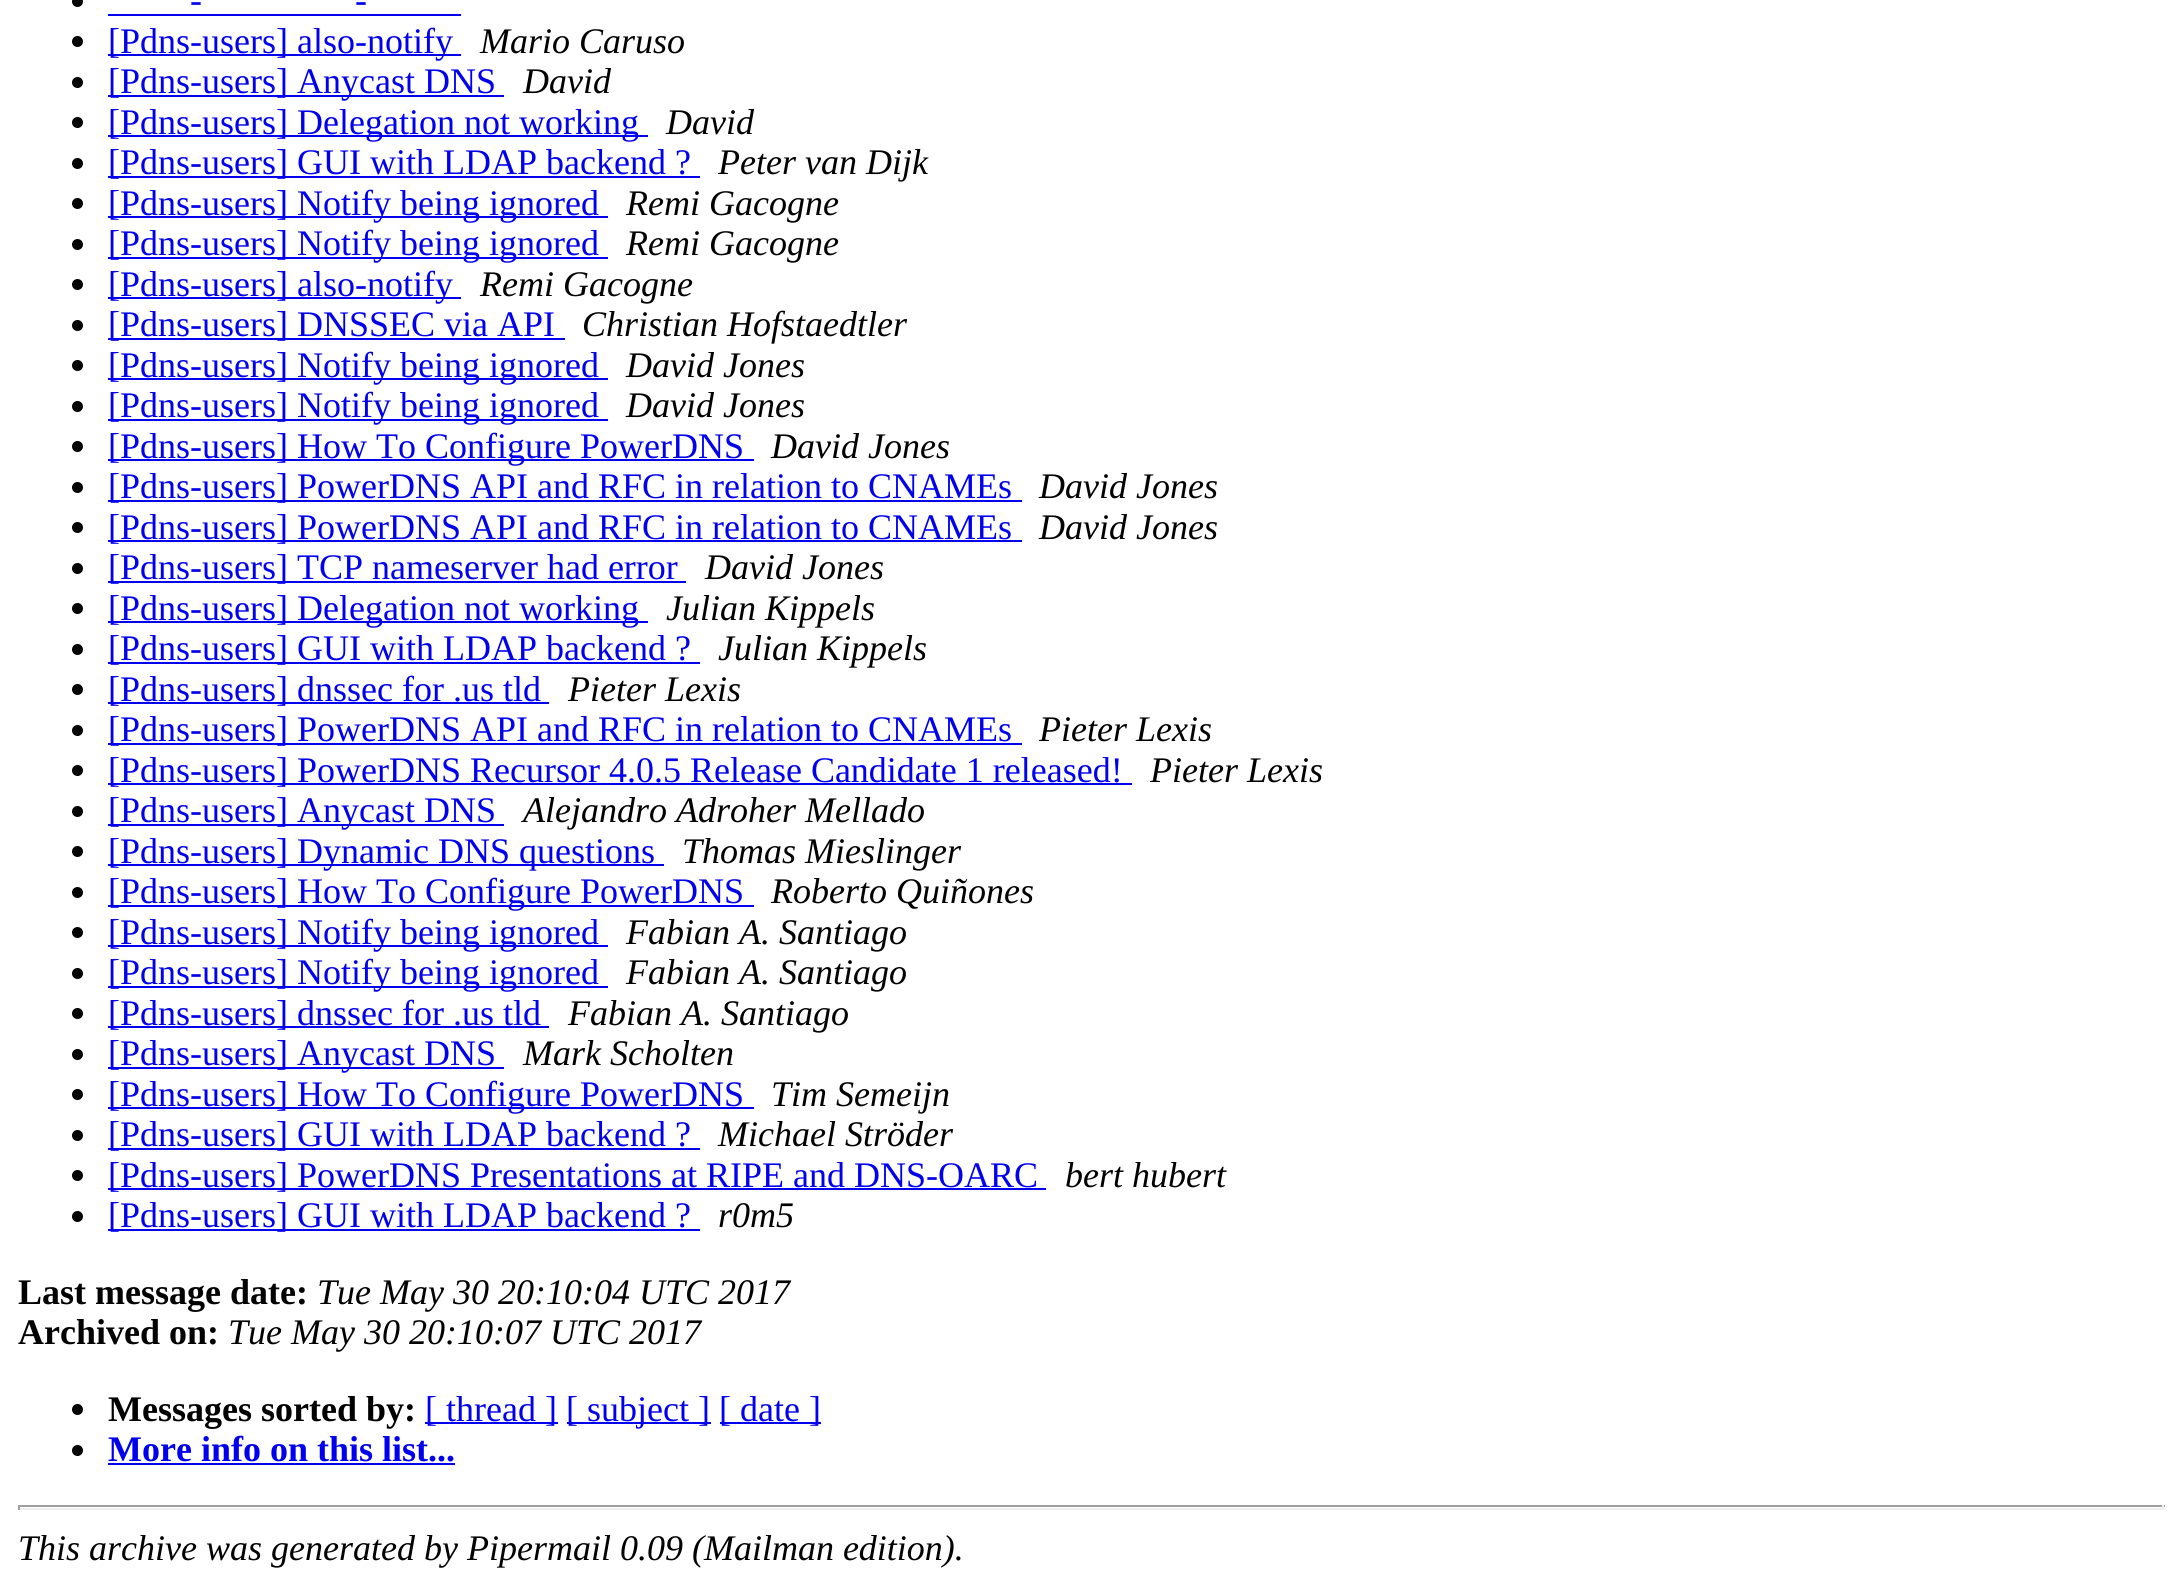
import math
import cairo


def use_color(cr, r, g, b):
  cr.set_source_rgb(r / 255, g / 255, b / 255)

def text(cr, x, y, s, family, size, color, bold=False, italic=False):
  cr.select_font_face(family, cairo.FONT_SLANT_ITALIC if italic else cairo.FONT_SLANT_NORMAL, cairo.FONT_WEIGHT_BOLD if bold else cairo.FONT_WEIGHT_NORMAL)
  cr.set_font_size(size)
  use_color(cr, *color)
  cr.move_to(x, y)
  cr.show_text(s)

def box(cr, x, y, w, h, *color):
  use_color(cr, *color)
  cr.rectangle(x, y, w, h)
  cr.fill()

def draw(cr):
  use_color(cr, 255, 255, 255)
  cr.paint()
  use_color(cr, 0, 0, 0)
  cr.arc(77.5, 1.5, 5.5, 0, 2 * math.pi)
  cr.fill()
  box(cr, 108, 14, 353, 2, 0, 0, 238)
  use_color(cr, 0, 0, 0)
  cr.arc(77.5, 41.5, 5.5, 0, 2 * math.pi)
  cr.fill()
  box(cr, 108, 54, 353, 2, 0, 0, 238)
  use_color(cr, 0, 0, 0)
  cr.arc(77.5, 82.5, 5.5, 0, 2 * math.pi)
  cr.fill()
  box(cr, 108, 95, 396, 2, 0, 0, 238)
  use_color(cr, 0, 0, 0)
  cr.arc(77.5, 122.5, 5.5, 0, 2 * math.pi)
  cr.fill()
  box(cr, 108, 135, 540, 2, 0, 0, 238)
  use_color(cr, 0, 0, 0)
  cr.arc(77.5, 163.5, 5.5, 0, 2 * math.pi)
  cr.fill()
  box(cr, 108, 176, 592, 2, 0, 0, 238)
  use_color(cr, 0, 0, 0)
  cr.arc(77.5, 203.5, 5.5, 0, 2 * math.pi)
  cr.fill()
  box(cr, 108, 216, 500, 2, 0, 0, 238)
  use_color(cr, 0, 0, 0)
  cr.arc(77.5, 244.5, 5.5, 0, 2 * math.pi)
  cr.fill()
  box(cr, 108, 257, 500, 2, 0, 0, 238)
  use_color(cr, 0, 0, 0)
  cr.arc(77.5, 284.5, 5.5, 0, 2 * math.pi)
  cr.fill()
  box(cr, 108, 297, 353, 2, 0, 0, 238)
  use_color(cr, 0, 0, 0)
  cr.arc(77.5, 325.5, 5.5, 0, 2 * math.pi)
  cr.fill()
  box(cr, 108, 338, 457, 2, 0, 0, 238)
  use_color(cr, 0, 0, 0)
  cr.arc(77.5, 365.5, 5.5, 0, 2 * math.pi)
  cr.fill()
  box(cr, 108, 378, 500, 2, 0, 0, 238)
  use_color(cr, 0, 0, 0)
  cr.arc(77.5, 406.5, 5.5, 0, 2 * math.pi)
  cr.fill()
  box(cr, 108, 419, 500, 2, 0, 0, 238)
  use_color(cr, 0, 0, 0)
  cr.arc(77.5, 446.5, 5.5, 0, 2 * math.pi)
  cr.fill()
  box(cr, 108, 459, 646, 2, 0, 0, 238)
  use_color(cr, 0, 0, 0)
  cr.arc(77.5, 487.5, 5.5, 0, 2 * math.pi)
  cr.fill()
  box(cr, 108, 500, 914, 2, 0, 0, 238)
  use_color(cr, 0, 0, 0)
  cr.arc(77.5, 527.5, 5.5, 0, 2 * math.pi)
  cr.fill()
  box(cr, 108, 540, 914, 2, 0, 0, 238)
  use_color(cr, 0, 0, 0)
  cr.arc(77.5, 568.5, 5.5, 0, 2 * math.pi)
  cr.fill()
  box(cr, 108, 581, 578, 2, 0, 0, 238)
  use_color(cr, 0, 0, 0)
  cr.arc(77.5, 608.5, 5.5, 0, 2 * math.pi)
  cr.fill()
  box(cr, 108, 621, 540, 2, 0, 0, 238)
  use_color(cr, 0, 0, 0)
  cr.arc(77.5, 649.5, 5.5, 0, 2 * math.pi)
  cr.fill()
  box(cr, 108, 662, 592, 2, 0, 0, 238)
  use_color(cr, 0, 0, 0)
  cr.arc(77.5, 689.5, 5.5, 0, 2 * math.pi)
  cr.fill()
  box(cr, 108, 702, 441, 2, 0, 0, 238)
  use_color(cr, 0, 0, 0)
  cr.arc(77.5, 730.5, 5.5, 0, 2 * math.pi)
  cr.fill()
  box(cr, 108, 743, 914, 2, 0, 0, 238)
  use_color(cr, 0, 0, 0)
  cr.arc(77.5, 770.5, 5.5, 0, 2 * math.pi)
  cr.fill()
  box(cr, 108, 783, 1024, 2, 0, 0, 238)
  use_color(cr, 0, 0, 0)
  cr.arc(77.5, 811.5, 5.5, 0, 2 * math.pi)
  cr.fill()
  box(cr, 108, 824, 396, 2, 0, 0, 238)
  use_color(cr, 0, 0, 0)
  cr.arc(77.5, 851.5, 5.5, 0, 2 * math.pi)
  cr.fill()
  box(cr, 108, 864, 556, 2, 0, 0, 238)
  use_color(cr, 0, 0, 0)
  cr.arc(77.5, 892.5, 5.5, 0, 2 * math.pi)
  cr.fill()
  box(cr, 108, 905, 646, 2, 0, 0, 238)
  use_color(cr, 0, 0, 0)
  cr.arc(77.5, 932.5, 5.5, 0, 2 * math.pi)
  cr.fill()
  box(cr, 108, 945, 500, 2, 0, 0, 238)
  use_color(cr, 0, 0, 0)
  cr.arc(77.5, 973.5, 5.5, 0, 2 * math.pi)
  cr.fill()
  box(cr, 108, 986, 500, 2, 0, 0, 238)
  use_color(cr, 0, 0, 0)
  cr.arc(77.5, 1013.5, 5.5, 0, 2 * math.pi)
  cr.fill()
  box(cr, 108, 1026, 441, 2, 0, 0, 238)
  use_color(cr, 0, 0, 0)
  cr.arc(77.5, 1054.5, 5.5, 0, 2 * math.pi)
  cr.fill()
  box(cr, 108, 1067, 396, 2, 0, 0, 238)
  use_color(cr, 0, 0, 0)
  cr.arc(77.5, 1094.5, 5.5, 0, 2 * math.pi)
  cr.fill()
  box(cr, 108, 1107, 646, 2, 0, 0, 238)
  use_color(cr, 0, 0, 0)
  cr.arc(77.5, 1135.5, 5.5, 0, 2 * math.pi)
  cr.fill()
  box(cr, 108, 1148, 592, 2, 0, 0, 238)
  use_color(cr, 0, 0, 0)
  cr.arc(77.5, 1175.5, 5.5, 0, 2 * math.pi)
  cr.fill()
  box(cr, 108, 1188, 938, 2, 0, 0, 238)
  use_color(cr, 0, 0, 0)
  cr.arc(77.5, 1216.5, 5.5, 0, 2 * math.pi)
  cr.fill()
  box(cr, 108, 1229, 592, 2, 0, 0, 238)
  use_color(cr, 0, 0, 0)
  cr.arc(77.5, 1409.5, 5.5, 0, 2 * math.pi)
  cr.fill()
  box(cr, 425, 1422, 133, 2, 0, 0, 238)
  box(cr, 567, 1422, 144, 2, 0, 0, 238)
  box(cr, 720, 1422, 101, 2, 0, 0, 238)
  use_color(cr, 0, 0, 0)
  cr.arc(77.5, 1450.5, 5.5, 0, 2 * math.pi)
  cr.fill()
  box(cr, 108, 1463, 347, 2, 0, 0, 238)
  box(cr, 18, 1505, 2147, 2, 159, 159, 159)
  box(cr, 2162, 1505, 2, 5, 238, 238, 238)
  box(cr, 18, 1508, 2147, 2, 238, 238, 238)
  box(cr, 18, 1505, 2, 5, 159, 159, 159)
  text(cr, 190, 12, "-", "Liberation Serif", 36, (0, 0, 238))
  text(cr, 355, 12, "-", "Liberation Serif", 36, (0, 0, 238))
  text(cr, 108, 53, "[Pdns-users] also-notify", "Liberation Serif", 36, (0, 0, 238))
  text(cr, 480, 53, "Mario Caruso", "Liberation Serif", 36, (0, 0, 0), italic=True)
  text(cr, 108, 93, "[Pdns-users] Anycast DNS", "Liberation Serif", 36, (0, 0, 238))
  text(cr, 523, 93, "David", "Liberation Serif", 36, (0, 0, 0), italic=True)
  text(cr, 108, 134, "[Pdns-users] Delegation not working", "Liberation Serif", 36, (0, 0, 238))
  text(cr, 666, 134, "David", "Liberation Serif", 36, (0, 0, 0), italic=True)
  text(cr, 108, 174, "[Pdns-users] GUI with LDAP backend ?", "Liberation Serif", 36, (0, 0, 238))
  text(cr, 718, 174, "Peter van Dijk", "Liberation Serif", 36, (0, 0, 0), italic=True)
  text(cr, 108, 215, "[Pdns-users] Notify being ignored", "Liberation Serif", 36, (0, 0, 238))
  text(cr, 626, 215, "Remi Gacogne", "Liberation Serif", 36, (0, 0, 0), italic=True)
  text(cr, 108, 255, "[Pdns-users] Notify being ignored", "Liberation Serif", 36, (0, 0, 238))
  text(cr, 626, 255, "Remi Gacogne", "Liberation Serif", 36, (0, 0, 0), italic=True)
  text(cr, 108, 296, "[Pdns-users] also-notify", "Liberation Serif", 36, (0, 0, 238))
  text(cr, 480, 296, "Remi Gacogne", "Liberation Serif", 36, (0, 0, 0), italic=True)
  text(cr, 108, 336, "[Pdns-users] DNSSEC via API", "Liberation Serif", 36, (0, 0, 238))
  text(cr, 582, 336, "Christian Hofstaedtler", "Liberation Serif", 36, (0, 0, 0), italic=True)
  text(cr, 108, 377, "[Pdns-users] Notify being ignored", "Liberation Serif", 36, (0, 0, 238))
  text(cr, 626, 377, "David Jones", "Liberation Serif", 36, (0, 0, 0), italic=True)
  text(cr, 108, 417, "[Pdns-users] Notify being ignored", "Liberation Serif", 36, (0, 0, 238))
  text(cr, 626, 417, "David Jones", "Liberation Serif", 36, (0, 0, 0), italic=True)
  text(cr, 108, 458, "[Pdns-users] How To Configure PowerDNS", "Liberation Serif", 36, (0, 0, 238))
  text(cr, 771, 458, "David Jones", "Liberation Serif", 36, (0, 0, 0), italic=True)
  text(cr, 108, 498, "[Pdns-users] PowerDNS API and RFC in relation to CNAMEs", "Liberation Serif", 36, (0, 0, 238))
  text(cr, 1039, 498, "David Jones", "Liberation Serif", 36, (0, 0, 0), italic=True)
  text(cr, 108, 539, "[Pdns-users] PowerDNS API and RFC in relation to CNAMEs", "Liberation Serif", 36, (0, 0, 238))
  text(cr, 1039, 539, "David Jones", "Liberation Serif", 36, (0, 0, 0), italic=True)
  text(cr, 108, 579, "[Pdns-users] TCP nameserver had error", "Liberation Serif", 36, (0, 0, 238))
  text(cr, 705, 579, "David Jones", "Liberation Serif", 36, (0, 0, 0), italic=True)
  text(cr, 108, 620, "[Pdns-users] Delegation not working", "Liberation Serif", 36, (0, 0, 238))
  text(cr, 666, 620, "Julian Kippels", "Liberation Serif", 36, (0, 0, 0), italic=True)
  text(cr, 108, 660, "[Pdns-users] GUI with LDAP backend ?", "Liberation Serif", 36, (0, 0, 238))
  text(cr, 718, 660, "Julian Kippels", "Liberation Serif", 36, (0, 0, 0), italic=True)
  text(cr, 108, 701, "[Pdns-users] dnssec for .us tld", "Liberation Serif", 36, (0, 0, 238))
  text(cr, 568, 701, "Pieter Lexis", "Liberation Serif", 36, (0, 0, 0), italic=True)
  text(cr, 108, 741, "[Pdns-users] PowerDNS API and RFC in relation to CNAMEs", "Liberation Serif", 36, (0, 0, 238))
  text(cr, 1039, 741, "Pieter Lexis", "Liberation Serif", 36, (0, 0, 0), italic=True)
  text(cr, 108, 782, "[Pdns-users] PowerDNS Recursor 4.0.5 Release Candidate 1 released!", "Liberation Serif", 36, (0, 0, 238))
  text(cr, 1150, 782, "Pieter Lexis", "Liberation Serif", 36, (0, 0, 0), italic=True)
  text(cr, 108, 822, "[Pdns-users] Anycast DNS", "Liberation Serif", 36, (0, 0, 238))
  text(cr, 523, 822, "Alejandro Adroher Mellado", "Liberation Serif", 36, (0, 0, 0), italic=True)
  text(cr, 108, 863, "[Pdns-users] Dynamic DNS questions", "Liberation Serif", 36, (0, 0, 238))
  text(cr, 682, 863, "Thomas Mieslinger", "Liberation Serif", 36, (0, 0, 0), italic=True)
  text(cr, 108, 903, "[Pdns-users] How To Configure PowerDNS", "Liberation Serif", 36, (0, 0, 238))
  text(cr, 771, 903, "Roberto Quiñones", "Liberation Serif", 36, (0, 0, 0), italic=True)
  text(cr, 108, 944, "[Pdns-users] Notify being ignored", "Liberation Serif", 36, (0, 0, 238))
  text(cr, 626, 944, "Fabian A. Santiago", "Liberation Serif", 36, (0, 0, 0), italic=True)
  text(cr, 108, 984, "[Pdns-users] Notify being ignored", "Liberation Serif", 36, (0, 0, 238))
  text(cr, 626, 984, "Fabian A. Santiago", "Liberation Serif", 36, (0, 0, 0), italic=True)
  text(cr, 108, 1025, "[Pdns-users] dnssec for .us tld", "Liberation Serif", 36, (0, 0, 238))
  text(cr, 568, 1025, "Fabian A. Santiago", "Liberation Serif", 36, (0, 0, 0), italic=True)
  text(cr, 108, 1065, "[Pdns-users] Anycast DNS", "Liberation Serif", 36, (0, 0, 238))
  text(cr, 523, 1065, "Mark Scholten", "Liberation Serif", 36, (0, 0, 0), italic=True)
  text(cr, 108, 1106, "[Pdns-users] How To Configure PowerDNS", "Liberation Serif", 36, (0, 0, 238))
  text(cr, 771, 1106, "Tim Semeijn", "Liberation Serif", 36, (0, 0, 0), italic=True)
  text(cr, 108, 1146, "[Pdns-users] GUI with LDAP backend ?", "Liberation Serif", 36, (0, 0, 238))
  text(cr, 718, 1146, "Michael Ströder", "Liberation Serif", 36, (0, 0, 0), italic=True)
  text(cr, 108, 1187, "[Pdns-users] PowerDNS Presentations at RIPE and DNS-OARC", "Liberation Serif", 36, (0, 0, 238))
  text(cr, 1065, 1187, "bert hubert", "Liberation Serif", 36, (0, 0, 0), italic=True)
  text(cr, 108, 1227, "[Pdns-users] GUI with LDAP backend ?", "Liberation Serif", 36, (0, 0, 238))
  text(cr, 718, 1227, "r0m5", "Liberation Serif", 36, (0, 0, 0), italic=True)
  text(cr, 18, 1304, "Last message date:", "Liberation Serif", 36, (0, 0, 0), bold=True)
  text(cr, 317, 1304, "Tue May 30 20:10:04 UTC 2017", "Liberation Serif", 36, (0, 0, 0), italic=True)
  text(cr, 18, 1344, "Archived on:", "Liberation Serif", 36, (0, 0, 0), bold=True)
  text(cr, 228, 1344, "Tue May 30 20:10:07 UTC 2017", "Liberation Serif", 36, (0, 0, 0), italic=True)
  text(cr, 108, 1421, "Messages sorted by:", "Liberation Serif", 36, (0, 0, 0), bold=True)
  text(cr, 425, 1421, "[ thread ]", "Liberation Serif", 36, (0, 0, 238))
  text(cr, 566, 1421, "[ subject ]", "Liberation Serif", 36, (0, 0, 238))
  text(cr, 719, 1421, "[ date ]", "Liberation Serif", 36, (0, 0, 238))
  text(cr, 108, 1461, "More info on this list...", "Liberation Serif", 36, (0, 0, 238), bold=True)
  text(cr, 18, 1560, "This archive was generated by Pipermail 0.09 (Mailman edition).", "Liberation Serif", 36, (0, 0, 0), italic=True)


surface = cairo.ImageSurface(cairo.FORMAT_RGB24, 2182, 1586)
cr = cairo.Context(surface)
options = cairo.FontOptions()
options.set_hint_metrics(cairo.HINT_METRICS_OFF)
options.set_hint_style(cairo.HINT_STYLE_NONE)
cr.set_font_options(options)
cr.set_miter_limit(4)
draw(cr)
surface.write_to_png("out.png")
